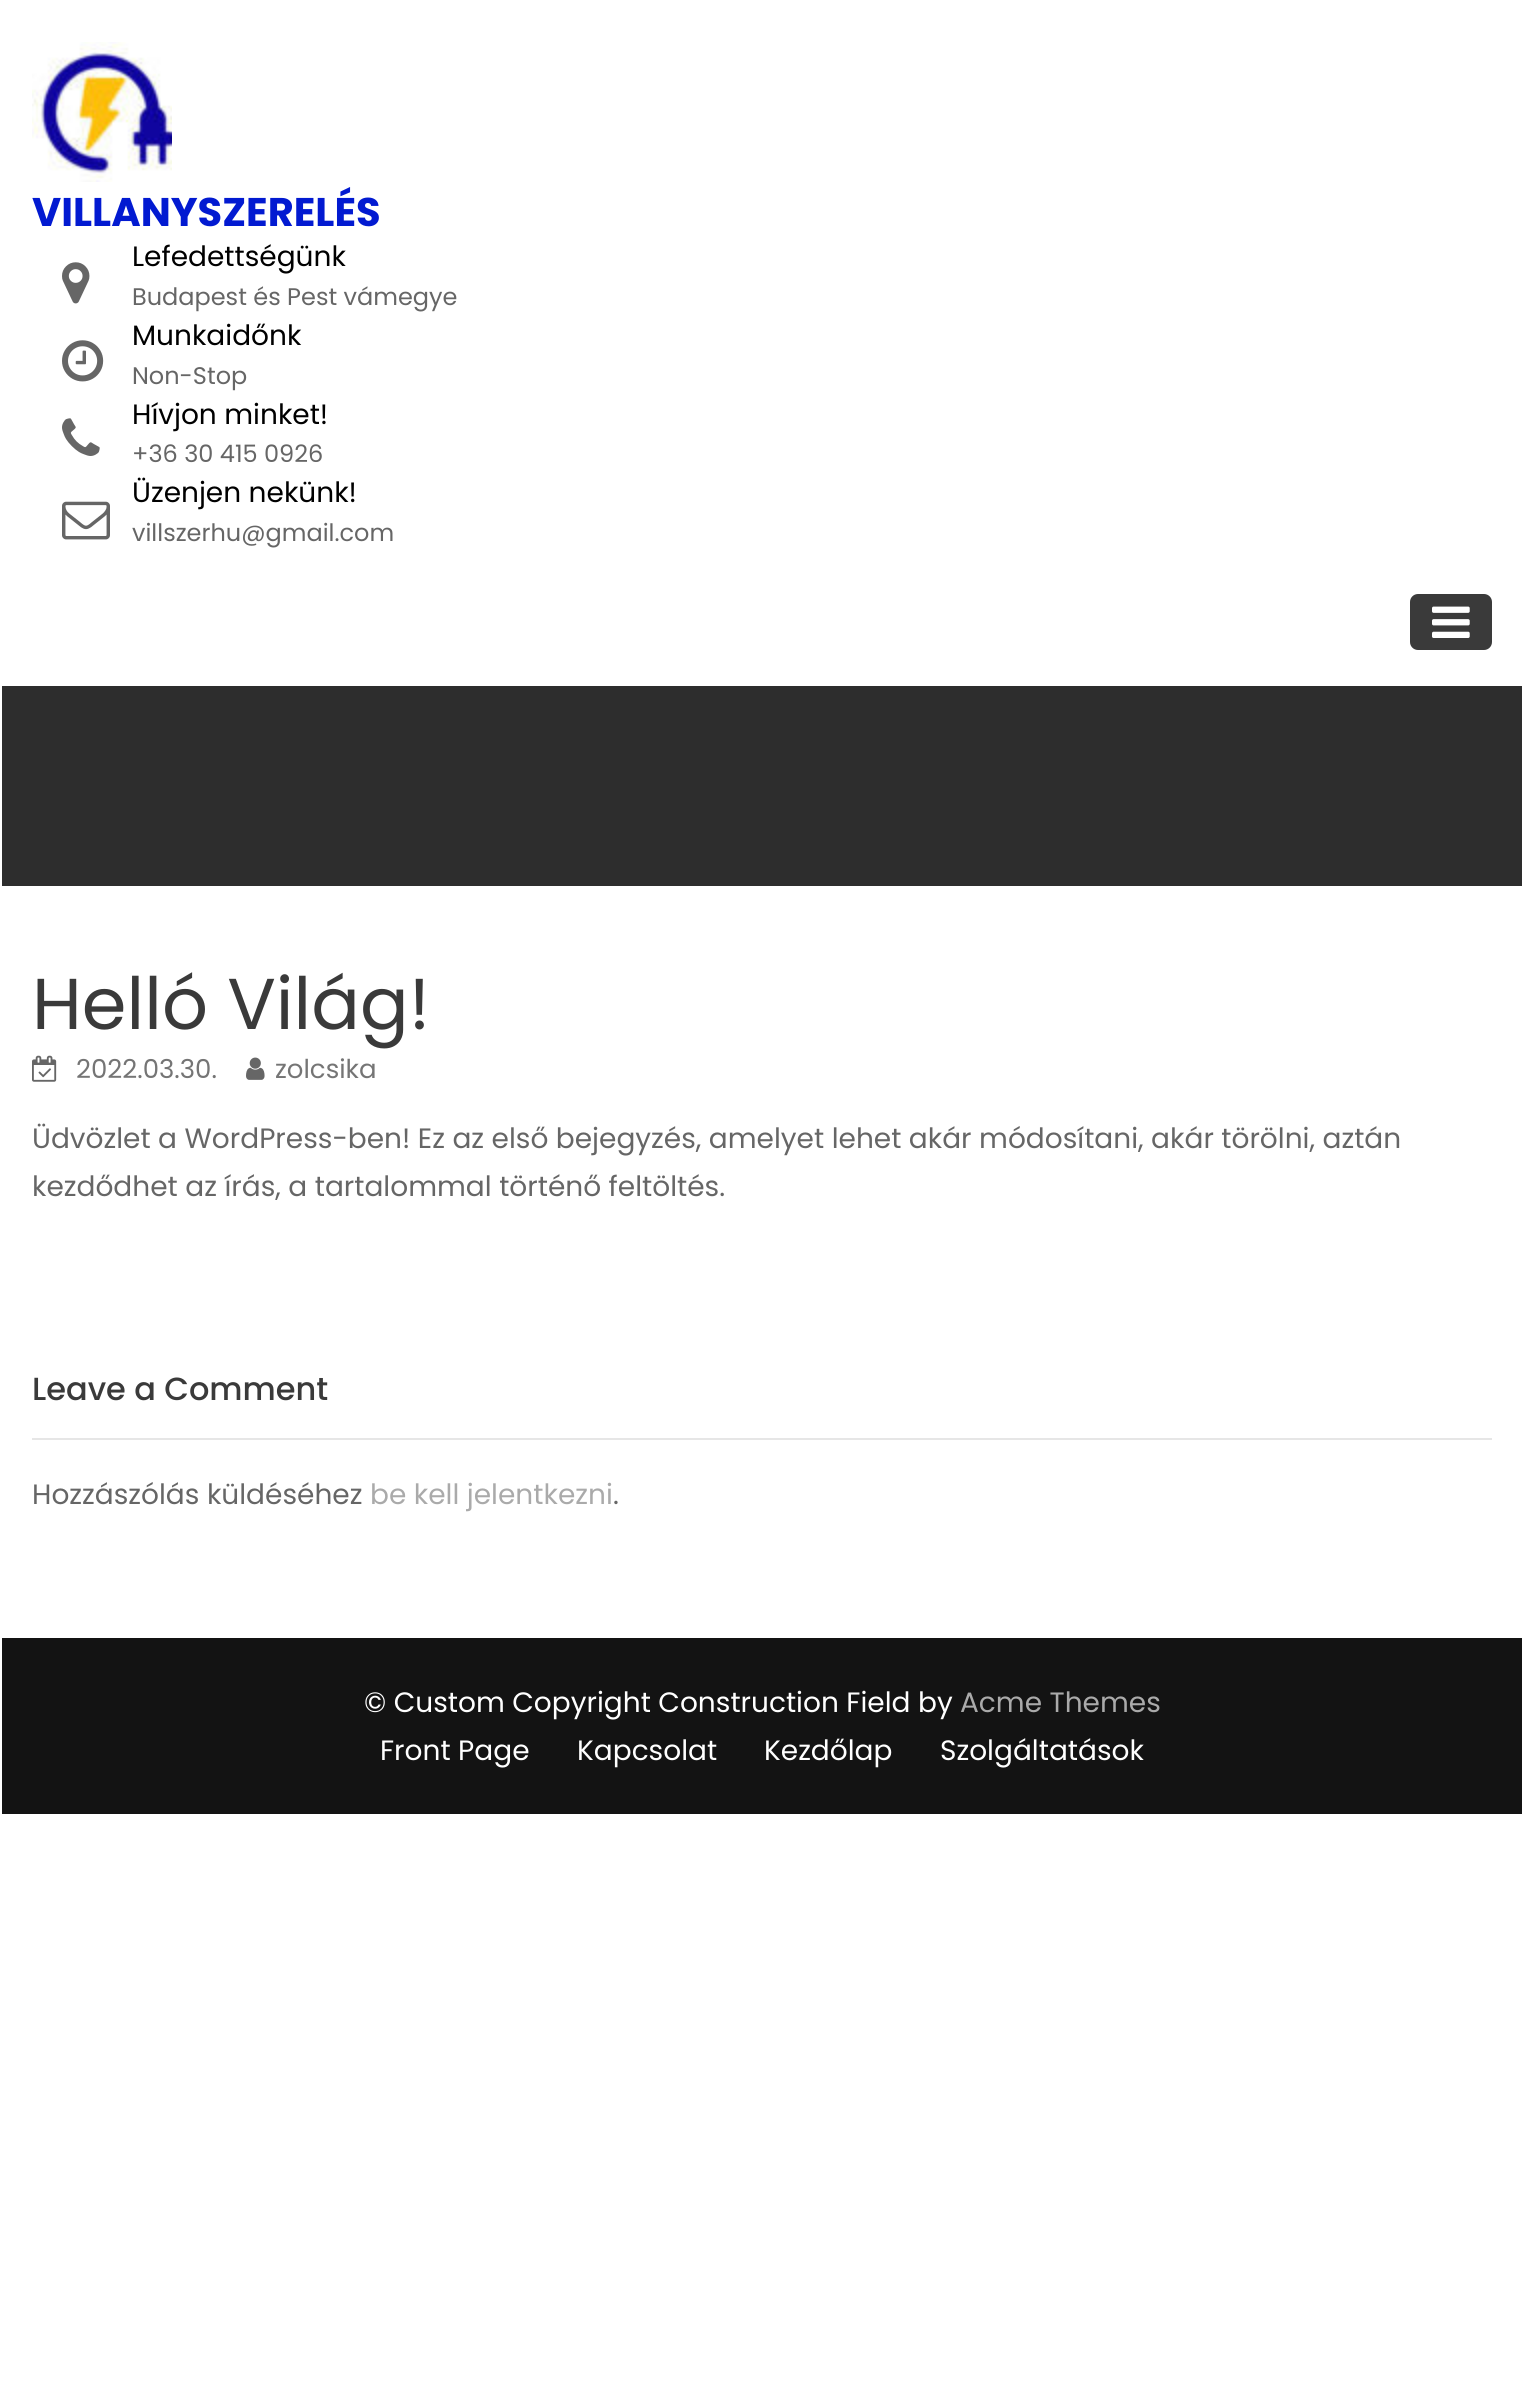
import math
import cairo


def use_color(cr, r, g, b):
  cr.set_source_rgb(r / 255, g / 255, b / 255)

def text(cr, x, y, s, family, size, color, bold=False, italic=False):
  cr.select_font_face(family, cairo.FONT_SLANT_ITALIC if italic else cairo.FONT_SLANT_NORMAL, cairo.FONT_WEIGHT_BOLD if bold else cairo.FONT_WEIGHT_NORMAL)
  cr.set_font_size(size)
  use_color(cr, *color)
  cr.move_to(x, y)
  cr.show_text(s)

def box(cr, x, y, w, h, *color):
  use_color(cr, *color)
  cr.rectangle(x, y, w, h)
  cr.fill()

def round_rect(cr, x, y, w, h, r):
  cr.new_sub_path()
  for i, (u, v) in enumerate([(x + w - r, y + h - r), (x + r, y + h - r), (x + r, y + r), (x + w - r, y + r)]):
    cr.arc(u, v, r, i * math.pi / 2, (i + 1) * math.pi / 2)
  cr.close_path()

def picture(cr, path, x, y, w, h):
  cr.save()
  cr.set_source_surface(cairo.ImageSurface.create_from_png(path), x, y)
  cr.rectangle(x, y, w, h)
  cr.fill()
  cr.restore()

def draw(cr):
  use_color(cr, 255, 255, 255)
  cr.paint()
  picture(cr, "img_01.png", 32, 42, 140, 140)
  picture(cr, "img_02.png", 62, 262, 28, 42)
  picture(cr, "img_03.png", 62, 340, 42, 42)
  picture(cr, "img_04.png", 62, 418, 38, 38)
  picture(cr, "img_05.png", 62, 501, 48, 39)
  use_color(cr, 58, 58, 58)
  round_rect(cr, 1410, 594, 82, 56, 8)
  cr.fill()
  picture(cr, "img_06.png", 1432, 606, 38, 32)
  box(cr, 2, 686, 1520, 200, 45, 45, 45)
  picture(cr, "img_07.png", 32, 1055, 25, 27)
  picture(cr, "img_08.png", 246, 1057, 19, 23)
  box(cr, 32, 1438, 1460, 2, 230, 230, 230)
  box(cr, 2, 1638, 1520, 176, 19, 19, 19)
  text(cr, 32, 226, "VILLANYSZERELÉS", "Poppins", 40, (2, 26, 209), bold=True)
  text(cr, 132, 266, "Lefedettségünk", "Poppins", 28, (0, 0, 0))
  text(cr, 132, 305, "Budapest és Pest vámegye", "Poppins", 24, (102, 102, 102))
  text(cr, 132, 345, "Munkaidőnk", "Poppins", 28, (0, 0, 0))
  text(cr, 132, 384, "Non-Stop", "Poppins", 24, (102, 102, 102))
  text(cr, 132, 424, "Hívjon minket!", "Poppins", 28, (0, 0, 0))
  text(cr, 132, 462, "+36 30 415 0926", "Poppins", 24, (102, 102, 102))
  text(cr, 132, 502, "Üzenjen nekünk!", "Poppins", 28, (0, 0, 0))
  text(cr, 132, 541, "villszerhu@gmail.com", "Poppins", 24, (102, 102, 102))
  text(cr, 32, 1029, "Helló Világ!", "Poppins", 72, (58, 58, 58))
  text(cr, 76, 1078, "2022.03.30.", "Poppins", 26, (117, 117, 117))
  text(cr, 275, 1078, "zolcsika", "Poppins", 26, (117, 117, 117))
  text(cr, 32, 1148, "Üdvözlet a WordPress-ben! Ez az első bejegyzés, amelyet lehet akár módosítani, akár törölni, aztán", "Poppins", 28, (102, 102, 102))
  text(cr, 32, 1196, "kezdődhet az írás, a tartalommal történő feltöltés.", "Poppins", 28, (102, 102, 102))
  text(cr, 32, 1400, "Leave a Comment", "Poppins Medium", 32, (58, 58, 58))
  text(cr, 32, 1504, "Hozzászólás küldéséhez", "Poppins", 28, (102, 102, 102))
  text(cr, 370, 1504, "be kell jelentkezni", "Poppins", 28, (170, 170, 170))
  text(cr, 613, 1504, ".", "Poppins", 28, (102, 102, 102))
  text(cr, 364, 1712, "© Custom Copyright Construction Field by", "Poppins", 28, (255, 255, 255))
  text(cr, 960, 1712, "Acme Themes", "Poppins", 28, (170, 170, 170))
  text(cr, 380, 1760, "Front Page", "Poppins", 28, (255, 255, 255))
  text(cr, 577, 1760, "Kapcsolat", "Poppins", 28, (255, 255, 255))
  text(cr, 764, 1760, "Kezdőlap", "Poppins", 28, (255, 255, 255))
  text(cr, 940, 1760, "Szolgáltatások", "Poppins", 28, (255, 255, 255))


surface = cairo.ImageSurface(cairo.FORMAT_RGB24, 1523, 2391)
cr = cairo.Context(surface)
options = cairo.FontOptions()
options.set_hint_metrics(cairo.HINT_METRICS_OFF)
options.set_hint_style(cairo.HINT_STYLE_NONE)
cr.set_font_options(options)
cr.set_miter_limit(4)
draw(cr)
surface.write_to_png("out.png")
